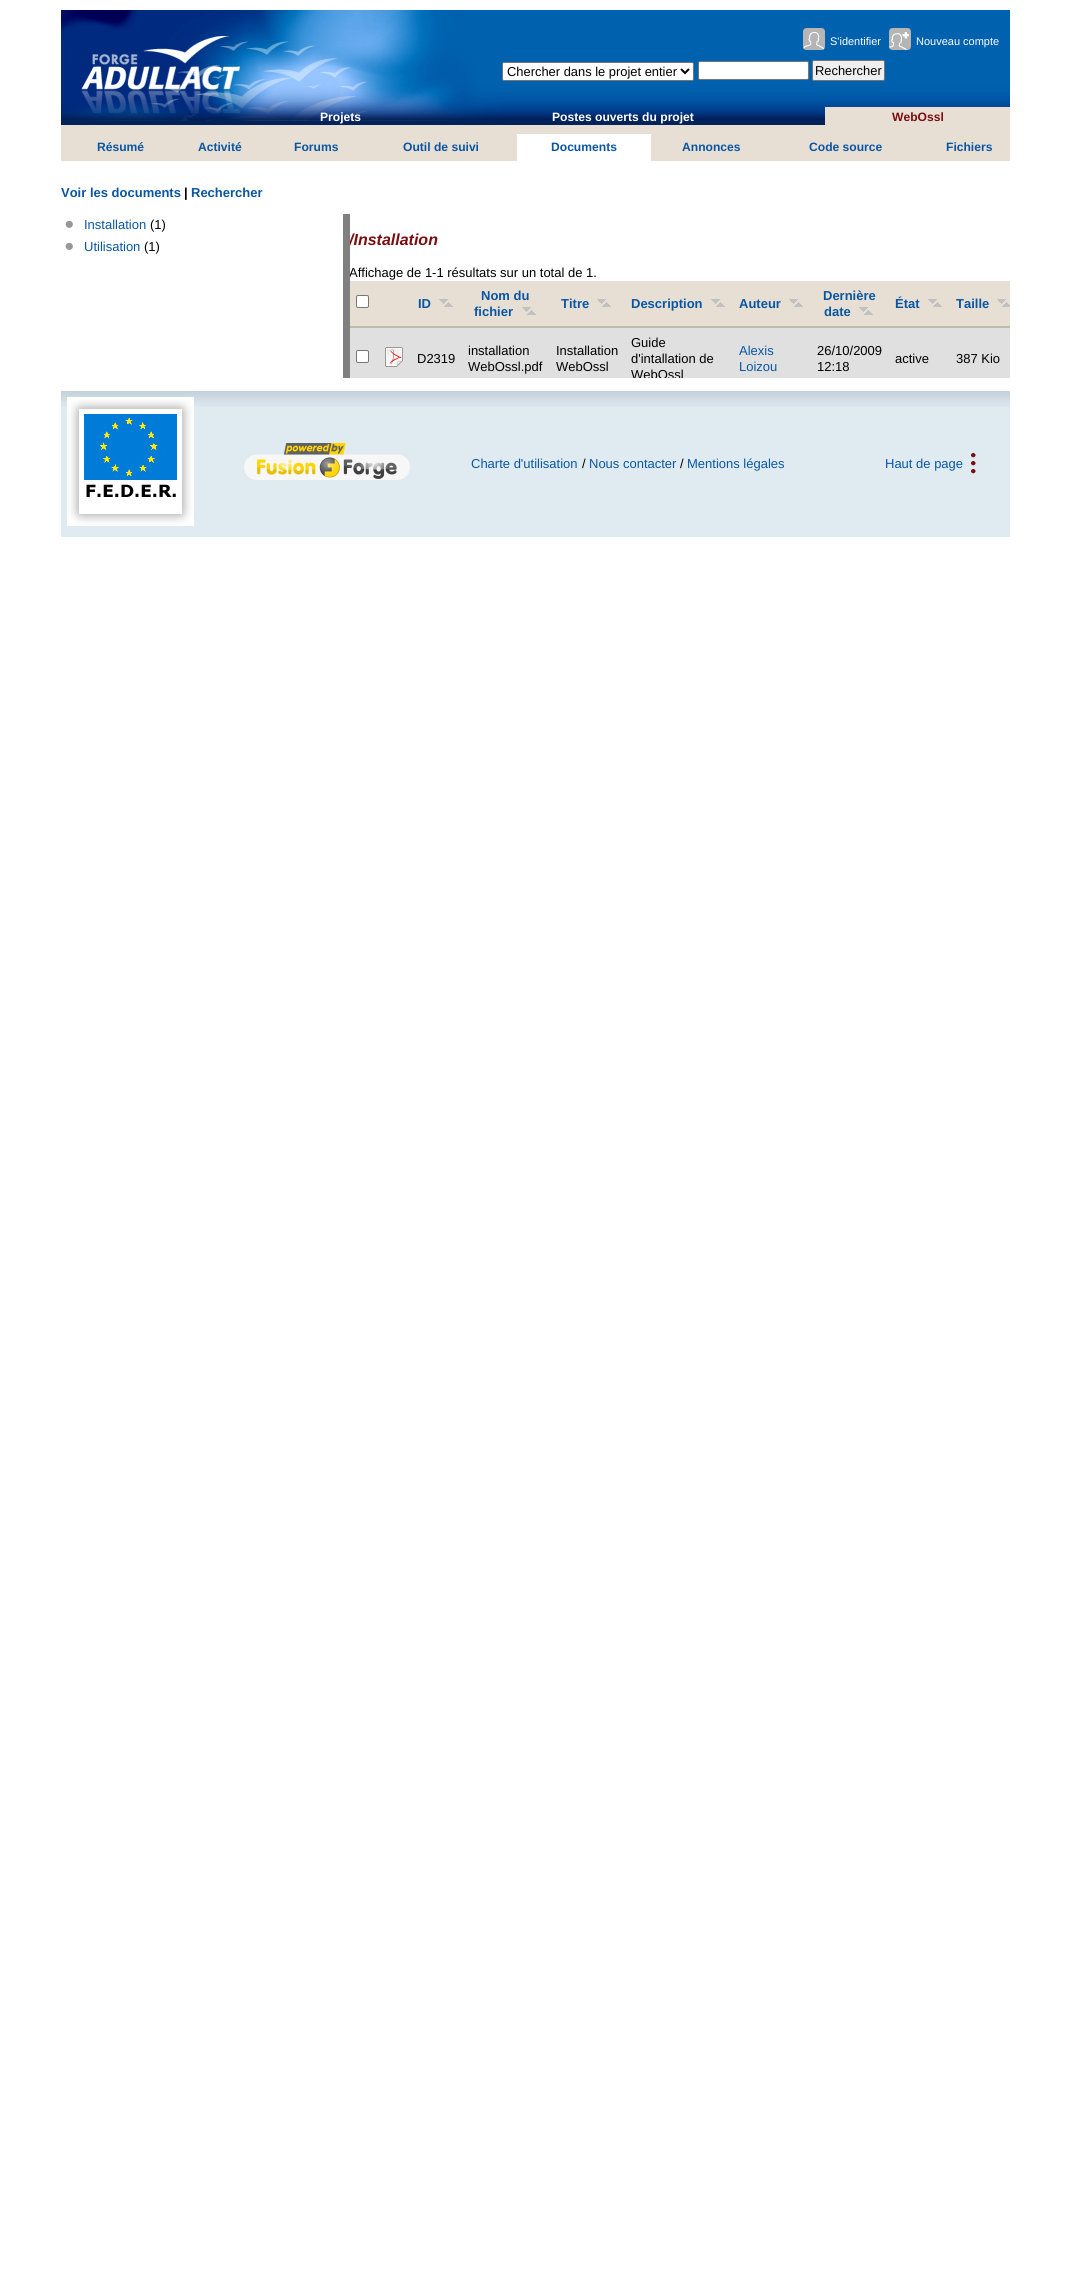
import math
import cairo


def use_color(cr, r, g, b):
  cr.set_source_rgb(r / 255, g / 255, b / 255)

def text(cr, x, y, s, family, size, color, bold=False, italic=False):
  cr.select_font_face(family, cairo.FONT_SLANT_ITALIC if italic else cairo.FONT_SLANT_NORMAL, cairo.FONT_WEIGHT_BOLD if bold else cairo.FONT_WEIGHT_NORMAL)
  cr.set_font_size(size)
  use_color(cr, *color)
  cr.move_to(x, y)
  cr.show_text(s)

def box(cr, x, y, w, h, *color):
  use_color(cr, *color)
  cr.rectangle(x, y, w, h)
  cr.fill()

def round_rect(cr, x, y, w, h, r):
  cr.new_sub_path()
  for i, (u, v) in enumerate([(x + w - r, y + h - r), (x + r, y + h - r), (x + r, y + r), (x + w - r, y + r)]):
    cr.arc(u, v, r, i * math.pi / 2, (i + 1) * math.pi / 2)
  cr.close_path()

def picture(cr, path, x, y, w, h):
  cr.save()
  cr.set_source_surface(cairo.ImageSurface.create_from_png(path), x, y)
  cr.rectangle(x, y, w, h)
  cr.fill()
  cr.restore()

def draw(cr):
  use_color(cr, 255, 255, 255)
  cr.paint()
  box(cr, 61, 121, 764, 4, 0, 35, 89)
  picture(cr, "img_01.png", 61, 10, 949, 111)
  picture(cr, "img_02.png", 803, 28, 22, 22)
  picture(cr, "img_03.png", 889, 28, 22, 22)
  use_color(cr, 255, 255, 255)
  round_rect(cr, 502.5, 62.5, 191, 18, 1.5)
  cr.fill_preserve()
  use_color(cr, 118, 118, 118)
  cr.set_line_width(1)
  cr.stroke()
  cr.new_path()
  cr.move_to(681, 69)
  cr.line_to(685, 73)
  cr.line_to(689, 69)
  use_color(cr, 0, 0, 0)
  cr.set_line_width(2)
  cr.stroke()
  use_color(cr, 255, 255, 255)
  round_rect(cr, 698.5, 61.5, 110, 18, 1.5)
  cr.fill_preserve()
  use_color(cr, 118, 118, 118)
  cr.set_line_width(1)
  cr.stroke()
  use_color(cr, 239, 239, 239)
  round_rect(cr, 812.5, 60.5, 72, 20, 1.5)
  cr.fill_preserve()
  use_color(cr, 118, 118, 118)
  cr.stroke()
  box(cr, 825, 107, 185, 18, 232, 223, 212)
  box(cr, 61, 125, 949, 36, 232, 223, 212)
  box(cr, 517, 134, 134, 27, 255, 255, 255)
  picture(cr, "img_04.png", 65, 220, 8, 8)
  picture(cr, "img_04.png", 65, 242, 8, 8)
  box(cr, 350, 281, 660, 45, 232, 223, 212)
  use_color(cr, 255, 255, 255)
  round_rect(cr, 356.5, 295.5, 12, 12, 1.5)
  cr.fill_preserve()
  use_color(cr, 118, 118, 118)
  cr.stroke()
  picture(cr, "img_05.png", 439, 299, 14, 8)
  picture(cr, "img_05.png", 522, 307, 14, 8)
  picture(cr, "img_05.png", 597, 299, 14, 8)
  picture(cr, "img_05.png", 711, 299, 14, 8)
  picture(cr, "img_05.png", 789, 299, 14, 8)
  picture(cr, "img_05.png", 859, 307, 14, 8)
  picture(cr, "img_05.png", 928, 299, 14, 8)
  box(cr, 349, 326, 661, 2, 188, 188, 173)
  picture(cr, "img_06.png", 997, 299, 13, 8)
  box(cr, 350, 328, 660, 50, 224, 224, 224)
  use_color(cr, 255, 255, 255)
  round_rect(cr, 356.5, 350.5, 12, 12, 1.5)
  cr.fill_preserve()
  use_color(cr, 118, 118, 118)
  cr.stroke()
  picture(cr, "img_07.png", 385, 347, 18, 20)
  box(cr, 61, 407, 949, 130, 224, 235, 241)
  picture(cr, "img_08.png", 61, 391, 949, 16)
  picture(cr, "img_09.png", 67, 397, 127, 129)
  picture(cr, "img_10.png", 244, 443, 166, 37)
  picture(cr, "img_11.png", 971, 453, 5, 21)
  text(cr, 830, 45, "S'identifier", "Liberation Sans", 11, (255, 255, 255))
  text(cr, 916, 45, "Nouveau compte", "Liberation Sans", 11, (255, 255, 255))
  text(cr, 507, 76, "Chercher dans le projet entier", "Liberation Sans", 12.9, (0, 0, 0))
  text(cr, 815, 75, "Rechercher", "Liberation Sans", 12.9, (0, 0, 0))
  text(cr, 320, 121, "Projets", "Liberation Sans", 12.1, (255, 255, 255), bold=True)
  text(cr, 552, 121, "Postes ouverts du projet", "Liberation Sans", 12.1, (255, 255, 255), bold=True)
  text(cr, 892, 121, "WebOssl", "Liberation Sans", 12.1, (121, 14, 17), bold=True)
  text(cr, 97, 151, "Résumé", "Liberation Sans", 12.1, (8, 86, 163), bold=True)
  text(cr, 198, 151, "Activité", "Liberation Sans", 12.1, (8, 86, 163), bold=True)
  text(cr, 294, 151, "Forums", "Liberation Sans", 12.1, (8, 86, 163), bold=True)
  text(cr, 403, 151, "Outil de suivi", "Liberation Sans", 12.1, (8, 86, 163), bold=True)
  text(cr, 551, 151, "Documents", "Liberation Sans", 12.1, (8, 86, 163), bold=True)
  text(cr, 682, 151, "Annonces", "Liberation Sans", 12.1, (8, 86, 163), bold=True)
  text(cr, 809, 151, "Code source", "Liberation Sans", 12.1, (8, 86, 163), bold=True)
  text(cr, 946, 151, "Fichiers", "Liberation Sans", 12.1, (8, 86, 163), bold=True)
  text(cr, 61, 197, "Voir les documents", "Liberation Sans", 13, (8, 86, 163), bold=True)
  text(cr, 184, 197, "|", "Liberation Sans", 13, (0, 0, 0), bold=True)
  text(cr, 191, 197, "Rechercher", "Liberation Sans", 13, (8, 86, 163), bold=True)
  text(cr, 84, 229, "Installation", "Liberation Sans", 13, (8, 86, 163))
  text(cr, 150, 229, "(1)", "Liberation Sans", 13, (0, 0, 0))
  text(cr, 84, 251, "Utilisation", "Liberation Sans", 13, (8, 86, 163))
  text(cr, 144, 251, "(1)", "Liberation Sans", 13, (0, 0, 0))
  text(cr, 349, 245, "/Installation", "Liberation Sans", 16, (121, 14, 17), bold=True, italic=True)
  text(cr, 349, 277, "Affichage de 1-1 résultats sur un total de 1.", "Liberation Sans", 13, (0, 0, 0))
  box(cr, 343, 214, 7, 164, 128, 128, 128)
  text(cr, 418, 308, "ID", "Liberation Sans", 13, (8, 86, 163), bold=True)
  text(cr, 481, 300, "Nom du", "Liberation Sans", 13, (8, 86, 163), bold=True)
  text(cr, 474, 316, "fichier", "Liberation Sans", 13, (8, 86, 163), bold=True)
  text(cr, 561, 308, "Titre", "Liberation Sans", 13, (8, 86, 163), bold=True)
  text(cr, 631, 308, "Description", "Liberation Sans", 13, (8, 86, 163), bold=True)
  text(cr, 739, 308, "Auteur", "Liberation Sans", 13, (8, 86, 163), bold=True)
  text(cr, 823, 300, "Dernière", "Liberation Sans", 13, (8, 86, 163), bold=True)
  text(cr, 824, 316, "date", "Liberation Sans", 13, (8, 86, 163), bold=True)
  text(cr, 895, 308, "État", "Liberation Sans", 13, (8, 86, 163), bold=True)
  text(cr, 956, 308, "Taille", "Liberation Sans", 13, (8, 86, 163), bold=True)
  text(cr, 417, 363, "D2319", "Liberation Sans", 13, (0, 0, 0))
  text(cr, 468, 355, "installation", "Liberation Sans", 13, (0, 0, 0))
  text(cr, 468, 371, "WebOssl.pdf", "Liberation Sans", 13, (0, 0, 0))
  text(cr, 556, 355, "Installation", "Liberation Sans", 13, (0, 0, 0))
  text(cr, 556, 371, "WebOssl", "Liberation Sans", 13, (0, 0, 0))
  text(cr, 631, 347, "Guide", "Liberation Sans", 13, (0, 0, 0))
  text(cr, 631, 363, "d'intallation de", "Liberation Sans", 13, (0, 0, 0))
  cr.save()
  cr.rectangle(349, 214, 661, 164)
  cr.clip()
  text(cr, 631, 379, "WebOssl", "Liberation Sans", 13, (0, 0, 0))
  cr.restore()
  text(cr, 739, 355, "Alexis", "Liberation Sans", 13, (8, 86, 163))
  text(cr, 739, 371, "Loizou", "Liberation Sans", 13, (8, 86, 163))
  text(cr, 817, 355, "26/10/2009", "Liberation Sans", 13, (0, 0, 0))
  text(cr, 817, 371, "12:18", "Liberation Sans", 13, (0, 0, 0))
  text(cr, 895, 363, "active", "Liberation Sans", 13, (0, 0, 0))
  text(cr, 956, 363, "387 Kio", "Liberation Sans", 13, (0, 0, 0))
  text(cr, 471, 468, "Charte d'utilisation", "Liberation Sans", 13, (8, 86, 163))
  text(cr, 582, 468, "/", "Liberation Sans", 13, (0, 0, 0))
  text(cr, 589, 468, "Nous contacter", "Liberation Sans", 13, (8, 86, 163))
  text(cr, 680, 468, "/", "Liberation Sans", 13, (0, 0, 0))
  text(cr, 687, 468, "Mentions légales", "Liberation Sans", 13, (8, 86, 163))
  text(cr, 885, 468, "Haut de page", "Liberation Sans", 13, (8, 86, 163))


surface = cairo.ImageSurface(cairo.FORMAT_RGB24, 1071, 2270)
cr = cairo.Context(surface)
options = cairo.FontOptions()
options.set_hint_metrics(cairo.HINT_METRICS_OFF)
options.set_hint_style(cairo.HINT_STYLE_NONE)
cr.set_font_options(options)
cr.set_miter_limit(4)
draw(cr)
surface.write_to_png("out.png")
